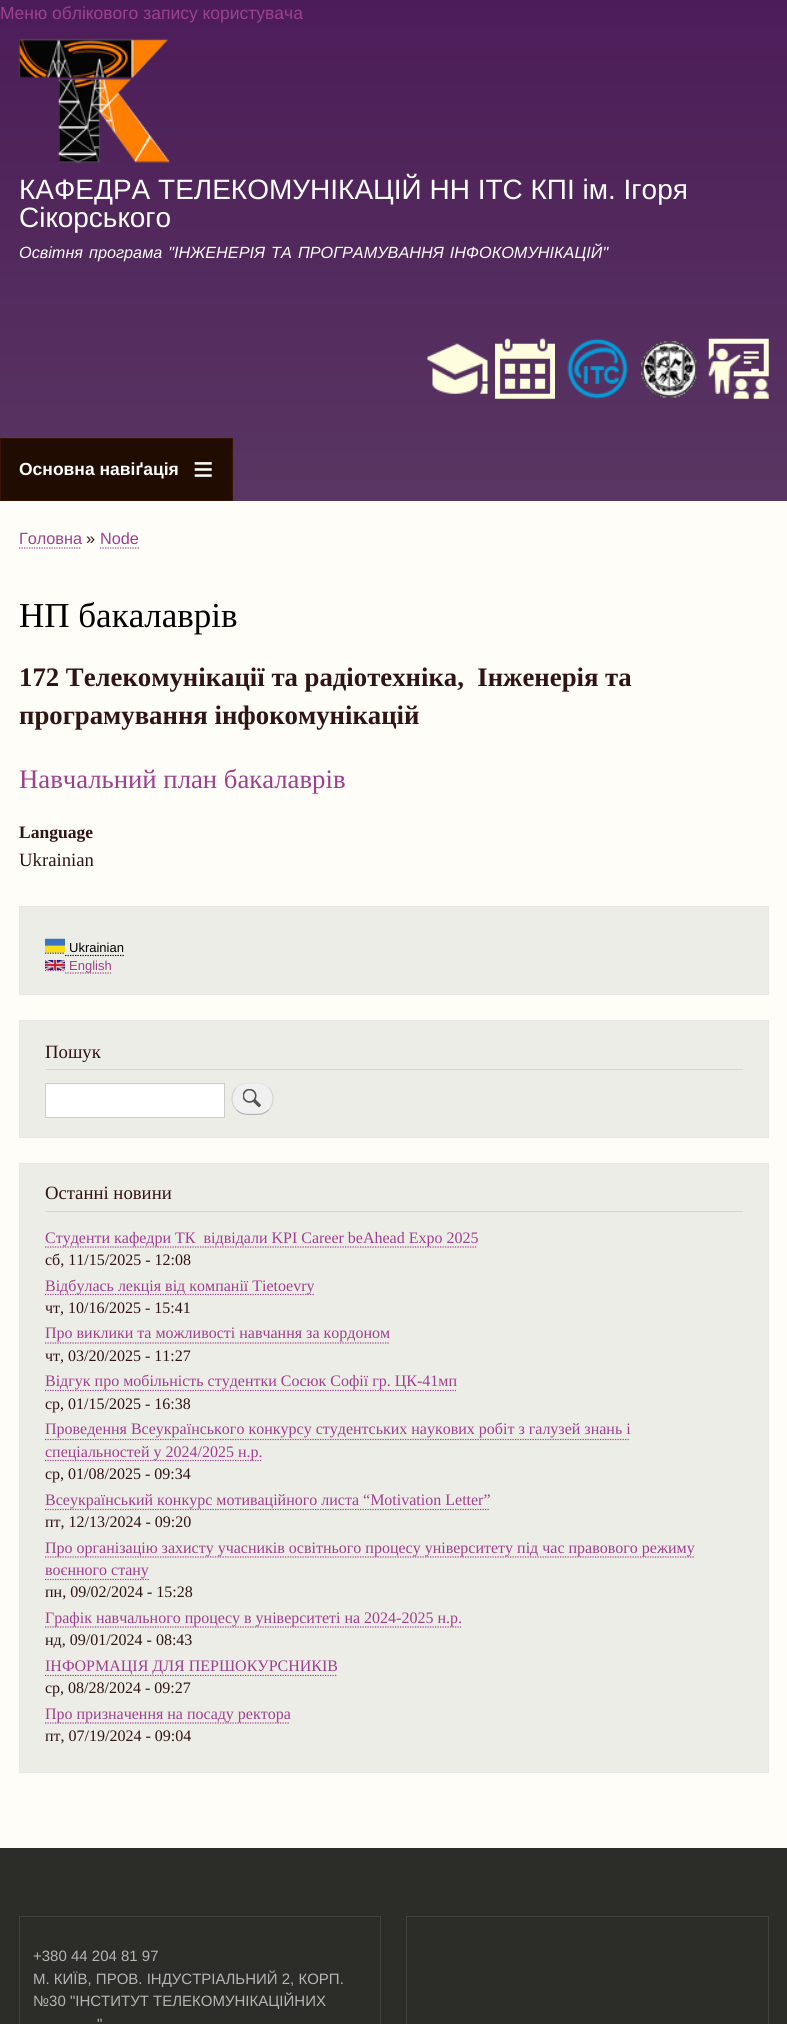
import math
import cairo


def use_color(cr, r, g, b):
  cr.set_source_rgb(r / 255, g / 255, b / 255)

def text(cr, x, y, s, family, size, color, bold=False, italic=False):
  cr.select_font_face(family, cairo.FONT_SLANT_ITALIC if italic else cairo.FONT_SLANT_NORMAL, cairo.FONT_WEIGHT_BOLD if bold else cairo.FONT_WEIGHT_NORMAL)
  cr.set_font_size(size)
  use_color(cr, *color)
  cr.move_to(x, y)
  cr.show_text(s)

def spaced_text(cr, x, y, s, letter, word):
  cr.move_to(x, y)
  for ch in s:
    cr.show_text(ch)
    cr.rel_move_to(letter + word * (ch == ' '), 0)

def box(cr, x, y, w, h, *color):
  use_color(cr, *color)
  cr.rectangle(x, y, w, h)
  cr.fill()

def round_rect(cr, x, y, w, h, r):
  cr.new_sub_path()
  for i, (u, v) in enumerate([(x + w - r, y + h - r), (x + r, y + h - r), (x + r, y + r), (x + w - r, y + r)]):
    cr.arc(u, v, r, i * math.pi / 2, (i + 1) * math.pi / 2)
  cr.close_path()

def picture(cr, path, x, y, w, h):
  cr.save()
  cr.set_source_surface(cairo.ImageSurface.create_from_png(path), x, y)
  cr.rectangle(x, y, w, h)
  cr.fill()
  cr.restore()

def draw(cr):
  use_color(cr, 255, 253, 247)
  cr.paint()
  gradient = cairo.LinearGradient(394, 0, 394, 501)
  gradient.add_color_stop_rgba(0, 0.298, 0.11, 0.345, 1)
  gradient.add_color_stop_rgba(1, 0.349, 0.212, 0.384, 1)
  cr.set_source(gradient)
  cr.rectangle(0, 0, 787, 501)
  cr.fill()
  picture(cr, "img_01.png", 18, 38, 152, 125)
  picture(cr, "img_02.png", 427, 343, 61, 51)
  picture(cr, "img_03.png", 495, 338, 60, 61)
  picture(cr, "img_04.png", 567, 338, 61, 61)
  picture(cr, "img_05.png", 641, 341, 56, 57)
  picture(cr, "img_06.png", 708, 338, 61, 61)
  use_color(cr, 33, 12, 2)
  cr.rectangle(0.5, 438.5, 232, 62)
  cr.fill_preserve()
  use_color(cr, 56, 19, 1)
  cr.set_line_width(1)
  cr.stroke()
  cr.new_path()
  cr.move_to(19, 548)
  cr.line_to(81, 548)
  use_color(cr, 157, 64, 141)
  cr.set_line_width(1.2)
  cr.set_dash([1.25, 1.25])
  cr.stroke()
  cr.new_path()
  cr.move_to(100, 548)
  cr.line_to(139, 548)
  cr.stroke()
  use_color(cr, 237, 237, 231)
  cr.rectangle(19.5, 906.5, 749, 88)
  cr.fill_preserve()
  use_color(cr, 231, 231, 231)
  cr.set_line_width(1)
  cr.set_dash([])
  cr.stroke()
  cr.new_path()
  cr.move_to(45, 953)
  cr.line_to(65, 953)
  use_color(cr, 0, 0, 0)
  cr.set_line_width(1.2)
  cr.set_dash([1.25, 1.25])
  cr.stroke()
  picture(cr, "img_07.png", 45, 938, 20, 15)
  cr.new_path()
  cr.move_to(65, 955.5)
  cr.line_to(124, 955.5)
  cr.stroke()
  cr.new_path()
  cr.move_to(45, 970.5)
  cr.line_to(65, 970.5)
  use_color(cr, 157, 64, 141)
  cr.stroke()
  picture(cr, "img_08.png", 45, 960, 20, 10)
  cr.new_path()
  cr.move_to(65, 973)
  cr.line_to(111, 973)
  cr.stroke()
  use_color(cr, 237, 237, 231)
  cr.rectangle(19.5, 1020.5, 749, 117)
  cr.fill_preserve()
  use_color(cr, 231, 231, 231)
  cr.set_line_width(1)
  cr.set_dash([])
  cr.stroke()
  box(cr, 45, 1069, 698, 1, 214, 214, 214)
  use_color(cr, 255, 255, 255)
  cr.rectangle(45.5, 1083.5, 179, 34)
  cr.fill_preserve()
  use_color(cr, 204, 204, 204)
  cr.stroke()
  use_color(cr, 240, 240, 240)
  round_rect(cr, 231, 1083, 43, 32, 16)
  cr.fill()
  picture(cr, "img_09.png", 243, 1089, 18, 19)
  cr.new_path()
  cr.move_to(236.5, 1087.5)
  cr.curve_to(241, 1083, 246.5, 1083, 252.5, 1083)
  cr.curve_to(258.5, 1083, 264, 1083, 268.5, 1087.5)
  use_color(cr, 228, 228, 228)
  cr.set_line_width(1.2)
  cr.stroke()
  cr.new_path()
  cr.move_to(268.5, 1087.5)
  cr.curve_to(274.5, 1093.5, 274.5, 1104, 268.5, 1110)
  use_color(cr, 210, 210, 210)
  cr.stroke()
  cr.new_path()
  cr.move_to(268.5, 1110)
  cr.curve_to(264, 1114.5, 258.5, 1114.5, 252.5, 1114.5)
  cr.curve_to(246.5, 1114.5, 241, 1114.5, 236.5, 1110)
  use_color(cr, 180, 180, 180)
  cr.stroke()
  cr.new_path()
  cr.move_to(236.5, 1110)
  cr.curve_to(230.5, 1104, 230.5, 1093.5, 236.5, 1087.5)
  use_color(cr, 210, 210, 210)
  cr.stroke()
  use_color(cr, 237, 237, 231)
  cr.rectangle(19.5, 1163.5, 749, 609)
  cr.fill_preserve()
  use_color(cr, 231, 231, 231)
  cr.set_line_width(1)
  cr.stroke()
  box(cr, 45, 1211, 698, 1, 214, 214, 214)
  cr.new_path()
  cr.move_to(45, 1247)
  cr.line_to(477.5, 1247)
  use_color(cr, 157, 64, 141)
  cr.set_line_width(1.2)
  cr.set_dash([1.25, 1.25])
  cr.stroke()
  cr.new_path()
  cr.move_to(45, 1294.5)
  cr.line_to(314, 1294.5)
  cr.stroke()
  cr.new_path()
  cr.move_to(45, 1343)
  cr.line_to(390, 1343)
  cr.stroke()
  cr.new_path()
  cr.move_to(45, 1390.5)
  cr.line_to(456, 1390.5)
  cr.stroke()
  cr.new_path()
  cr.move_to(45, 1439.5)
  cr.line_to(630, 1439.5)
  cr.stroke()
  cr.new_path()
  cr.move_to(45, 1460.5)
  cr.line_to(262.5, 1460.5)
  cr.stroke()
  cr.new_path()
  cr.move_to(45, 1509.5)
  cr.line_to(490, 1509.5)
  cr.stroke()
  cr.new_path()
  cr.move_to(45, 1557)
  cr.line_to(694, 1557)
  cr.stroke()
  cr.new_path()
  cr.move_to(45, 1579.5)
  cr.line_to(149, 1579.5)
  cr.stroke()
  cr.new_path()
  cr.move_to(45, 1627)
  cr.line_to(461, 1627)
  cr.stroke()
  cr.new_path()
  cr.move_to(45, 1675.5)
  cr.line_to(337.5, 1675.5)
  cr.stroke()
  cr.new_path()
  cr.move_to(45, 1723)
  cr.line_to(290, 1723)
  cr.stroke()
  box(cr, 0, 1848, 787, 176, 44, 44, 40)
  cr.rectangle(19.5, 1916.5, 361, 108)
  use_color(cr, 65, 65, 62)
  cr.set_line_width(1)
  cr.set_dash([])
  cr.stroke()
  cr.rectangle(406.5, 1916.5, 362, 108)
  cr.stroke()
  text(cr, 0, 19, "Меню облікового запису користувача", "Liberation Sans", 17.5, (157, 64, 141))
  text(cr, 19, 199, "КАФЕДРА ТЕЛЕКОМУНІКАЦІЙ НН ІТС КПІ ім. Ігоря", "Liberation Sans", 28, (255, 255, 255))
  text(cr, 19, 227, "Сікорського", "Liberation Sans", 28, (255, 255, 255))
  cr.select_font_face("Liberation Sans", cairo.FONT_SLANT_ITALIC)
  cr.set_font_size(16.25)
  spaced_text(cr, 19, 258, "Освітня програма \"ІНЖЕНЕРІЯ ТА ПРОГРАМУВАННЯ ІНФОКОМУНІКАЦІЙ\"", 0, 1.5)
  text(cr, 19, 475, "Основна навіґація", "Liberation Sans", 17.5, (255, 255, 255), bold=True)
  text(cr, 193, 481, "≡", "Liberation Sans", 35, (255, 255, 255), bold=True)
  text(cr, 19, 544, "Головна", "Liberation Sans", 16.25, (157, 64, 141))
  text(cr, 86, 544, "»", "Liberation Sans", 16.25, (48, 19, 19))
  text(cr, 100, 544, "Node", "Liberation Sans", 16.25, (157, 64, 141))
  text(cr, 19, 627, "НП бакалаврів", "Liberation Serif", 35, (0, 0, 0))
  text(cr, 19, 686, "172 Телекомунікації та радіотехніка,  Інженерія та", "Liberation Serif", 26.75, (48, 19, 19), bold=True)
  text(cr, 19, 724, "програмування інфокомунікацій", "Liberation Serif", 26.75, (48, 19, 19), bold=True)
  text(cr, 19, 788, "Навчальний план бакалаврів", "Liberation Serif", 26.75, (157, 64, 141))
  text(cr, 19, 838, "Language", "Liberation Serif", 17.5, (48, 19, 19), bold=True)
  text(cr, 19, 866, "Ukrainian", "Liberation Serif", 18.75, (48, 19, 19))
  text(cr, 69, 952, "Ukrainian", "Liberation Sans", 13, (0, 0, 0))
  text(cr, 69, 970, "English", "Liberation Sans", 13, (157, 64, 141))
  text(cr, 45, 1058, "Пошук", "Liberation Serif", 18.75, (48, 19, 19))
  text(cr, 45, 1199, "Останні новини", "Liberation Serif", 18.75, (48, 19, 19))
  text(cr, 45, 1243, "Студенти кафедри ТК  відвідали KPI Career beAhead Expo 2025", "Liberation Serif", 16, (157, 64, 141))
  text(cr, 45, 1265, "сб, 11/15/2025 - 12:08", "Liberation Serif", 16, (48, 19, 19))
  text(cr, 45, 1291, "Відбулась лекція від компанії Tietoevry", "Liberation Serif", 16, (157, 64, 141))
  text(cr, 45, 1313, "чт, 10/16/2025 - 15:41", "Liberation Serif", 16, (48, 19, 19))
  text(cr, 45, 1338, "Про виклики та можливості навчання за кордоном", "Liberation Serif", 16, (157, 64, 141))
  text(cr, 45, 1361, "чт, 03/20/2025 - 11:27", "Liberation Serif", 16, (48, 19, 19))
  text(cr, 45, 1386, "Відгук про мобільність студентки Сосюк Софії гр. ЦК-41мп", "Liberation Serif", 16, (157, 64, 141))
  text(cr, 45, 1409, "ср, 01/15/2025 - 16:38", "Liberation Serif", 16, (48, 19, 19))
  text(cr, 45, 1434, "Проведення Всеукраїнського конкурсу студентських наукових робіт з галузей знань і", "Liberation Serif", 16, (157, 64, 141))
  text(cr, 45, 1457, "спеціальностей у 2024/2025 н.р.", "Liberation Serif", 16, (157, 64, 141))
  text(cr, 45, 1479, "ср, 01/08/2025 - 09:34", "Liberation Serif", 16, (48, 19, 19))
  text(cr, 45, 1505, "Всеукраїнський конкурс мотиваційного листа “Motivation Letter”", "Liberation Serif", 16, (157, 64, 141))
  text(cr, 45, 1527, "пт, 12/13/2024 - 09:20", "Liberation Serif", 16, (48, 19, 19))
  text(cr, 45, 1553, "Про організацію захисту учасників освітнього процесу університету під час правового режиму", "Liberation Serif", 16, (157, 64, 141))
  text(cr, 45, 1575, "воєнного стану", "Liberation Serif", 16, (157, 64, 141))
  text(cr, 45, 1597, "пн, 09/02/2024 - 15:28", "Liberation Serif", 16, (48, 19, 19))
  text(cr, 45, 1623, "Графік навчального процесу в університеті на 2024-2025 н.р.", "Liberation Serif", 16, (157, 64, 141))
  text(cr, 45, 1645, "нд, 09/01/2024 - 08:43", "Liberation Serif", 16, (48, 19, 19))
  text(cr, 45, 1671, "ІНФОРМАЦІЯ ДЛЯ ПЕРШОКУРСНИКІВ", "Liberation Serif", 16, (157, 64, 141))
  text(cr, 45, 1693, "ср, 08/28/2024 - 09:27", "Liberation Serif", 16, (48, 19, 19))
  text(cr, 45, 1719, "Про призначення на посаду ректора", "Liberation Serif", 16, (157, 64, 141))
  text(cr, 45, 1741, "пт, 07/19/2024 - 09:04", "Liberation Serif", 16, (48, 19, 19))
  text(cr, 33, 1961, "+380 44 204 81 97", "Liberation Sans", 15, (181, 181, 180))
  text(cr, 33, 1984, "М. КИЇВ, ПРОВ. ІНДУСТРІАЛЬНИЙ 2, КОРП.", "Liberation Sans", 15, (181, 181, 180))
  text(cr, 33, 2006, "№30 \"ІНСТИТУТ ТЕЛЕКОМУНІКАЦІЙНИХ", "Liberation Sans", 15, (181, 181, 180))
  text(cr, 97, 2029, "\"", "Liberation Sans", 15, (181, 181, 180))


surface = cairo.ImageSurface(cairo.FORMAT_RGB24, 787, 2024)
cr = cairo.Context(surface)
options = cairo.FontOptions()
options.set_hint_metrics(cairo.HINT_METRICS_OFF)
options.set_hint_style(cairo.HINT_STYLE_NONE)
cr.set_font_options(options)
cr.set_miter_limit(4)
draw(cr)
surface.write_to_png("out.png")
